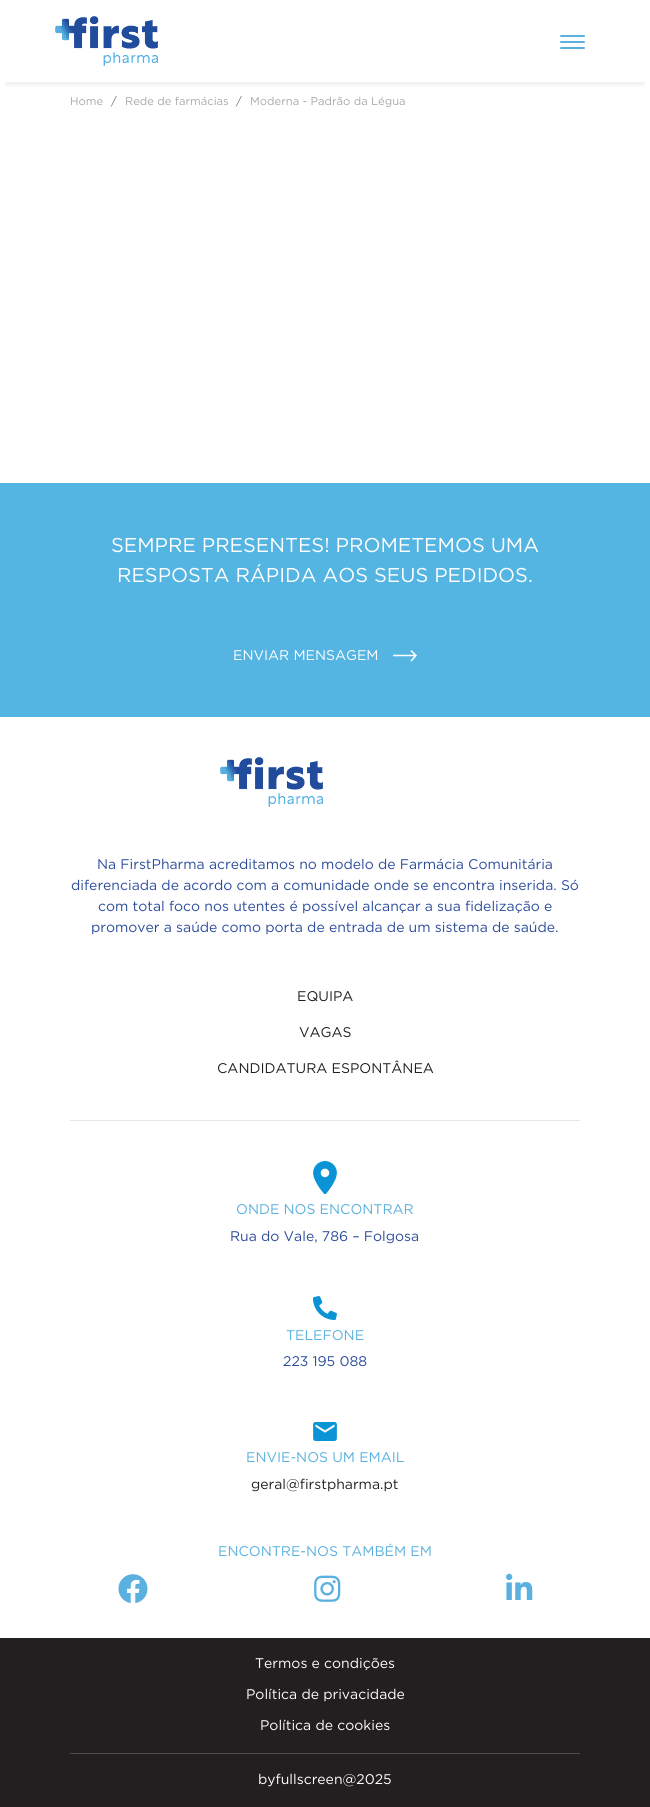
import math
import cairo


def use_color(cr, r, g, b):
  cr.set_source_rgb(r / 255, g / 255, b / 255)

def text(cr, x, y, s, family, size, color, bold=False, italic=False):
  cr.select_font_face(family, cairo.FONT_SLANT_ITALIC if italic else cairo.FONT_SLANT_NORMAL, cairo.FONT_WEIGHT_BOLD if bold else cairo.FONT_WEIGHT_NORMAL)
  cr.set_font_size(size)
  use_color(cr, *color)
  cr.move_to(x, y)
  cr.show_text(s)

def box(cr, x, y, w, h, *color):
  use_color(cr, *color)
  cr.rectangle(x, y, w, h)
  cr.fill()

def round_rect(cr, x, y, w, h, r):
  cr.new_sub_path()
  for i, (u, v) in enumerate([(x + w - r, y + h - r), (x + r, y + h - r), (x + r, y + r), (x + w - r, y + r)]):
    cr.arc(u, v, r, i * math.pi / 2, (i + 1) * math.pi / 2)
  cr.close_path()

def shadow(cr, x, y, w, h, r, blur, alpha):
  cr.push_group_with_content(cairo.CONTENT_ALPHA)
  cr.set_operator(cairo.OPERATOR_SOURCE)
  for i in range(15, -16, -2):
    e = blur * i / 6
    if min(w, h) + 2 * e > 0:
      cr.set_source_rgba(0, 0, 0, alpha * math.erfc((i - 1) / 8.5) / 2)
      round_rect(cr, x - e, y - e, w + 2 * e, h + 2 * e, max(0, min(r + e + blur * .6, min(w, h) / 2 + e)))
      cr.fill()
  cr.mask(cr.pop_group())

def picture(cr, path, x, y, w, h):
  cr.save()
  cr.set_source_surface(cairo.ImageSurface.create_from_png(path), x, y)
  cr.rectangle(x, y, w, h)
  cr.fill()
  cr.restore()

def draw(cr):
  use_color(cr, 255, 255, 255)
  cr.paint()
  cr.save()
  cr.rectangle(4, 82, 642, 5)
  cr.clip()
  use_color(cr, 68, 68, 68)
  shadow(cr, 6, 14, 638, 70, 0, 3, 0.12)
  cr.restore()
  picture(cr, "img_01.png", 55, 16, 103, 50)
  use_color(cr, 90, 176, 223)
  round_rect(cr, 560, 41, 25, 2, 1)
  cr.fill()
  round_rect(cr, 560, 35, 25, 2, 1)
  cr.fill()
  round_rect(cr, 560, 47, 25, 2, 1)
  cr.fill()
  box(cr, 0, 483, 650, 234, 84, 180, 226)
  cr.new_path()
  cr.move_to(393, 655.5)
  cr.line_to(416, 655.5)
  cr.move_to(411, 650.5)
  cr.line_to(416, 655.5)
  cr.line_to(411, 661)
  use_color(cr, 255, 255, 255)
  cr.set_line_width(1.5)
  cr.stroke()
  picture(cr, "img_01.png", 220, 757, 103, 50)
  box(cr, 70, 1120, 510, 1, 230, 230, 230)
  picture(cr, "img_02.png", 313, 1161, 24, 33)
  picture(cr, "img_03.png", 313, 1296, 24, 24)
  picture(cr, "img_04.png", 313, 1422, 24, 19)
  picture(cr, "img_05.png", 118, 1574, 30, 29)
  picture(cr, "img_06.png", 314, 1575, 27, 27)
  picture(cr, "img_07.png", 506, 1573, 27, 27)
  box(cr, 0, 1638, 650, 169, 35, 31, 32)
  box(cr, 70, 1753, 510, 1, 77, 77, 77)
  text(cr, 70, 105, "Home", "Gotham", 11.25, (168, 168, 168))
  text(cr, 111, 105, "/", "Gotham", 11.25, (108, 117, 125))
  text(cr, 125, 105, "Rede de farmácias", "Gotham", 11.25, (168, 168, 168))
  text(cr, 236, 105, "/", "Gotham", 11.25, (108, 117, 125))
  text(cr, 250, 105, "Moderna - Padrão da Légua", "Gotham", 11.25, (168, 168, 168))
  text(cr, 111, 552, "SEMPRE PRESENTES! PROMETEMOS UMA", "Gotham", 20, (255, 255, 255))
  text(cr, 117, 582, "RESPOSTA RÁPIDA AOS SEUS PEDIDOS.", "Gotham", 20, (255, 255, 255))
  text(cr, 233, 660, "ENVIAR MENSAGEM", "Gotham", 14, (255, 255, 255))
  text(cr, 97, 869, "Na FirstPharma acreditamos no modelo de Farmácia Comunitária", "Gotham", 14, (43, 76, 155))
  text(cr, 71, 890, "diferenciada de acordo com a comunidade onde se encontra inserida. Só", "Gotham", 14, (43, 76, 155))
  text(cr, 98, 911, "com total foco nos utentes é possível alcançar a sua fidelização e", "Gotham", 14, (43, 76, 155))
  text(cr, 91, 932, "promover a saúde como porta de entrada de um sistema de saúde.", "Gotham", 14, (43, 76, 155))
  text(cr, 297, 1001, "EQUIPA", "Gotham", 14, (35, 31, 32))
  text(cr, 299, 1037, "VAGAS", "Gotham", 14, (35, 31, 32))
  text(cr, 217, 1073, "CANDIDATURA ESPONTÂNEA", "Gotham", 14, (35, 31, 32))
  text(cr, 236, 1214, "ONDE NOS ENCONTRAR", "Gotham", 14, (90, 176, 223))
  text(cr, 230, 1241, "Rua do Vale, 786 – Folgosa", "Gotham", 14, (43, 76, 155))
  text(cr, 286, 1340, "TELEFONE", "Gotham", 14, (90, 176, 223))
  text(cr, 283, 1366, "223 195 088", "Gotham", 14, (43, 76, 155))
  text(cr, 246, 1462, "ENVIE-NOS UM EMAIL", "Gotham", 14, (90, 176, 223))
  text(cr, 251, 1489, "geral@firstpharma.pt", "Gotham", 14, (35, 31, 32))
  text(cr, 218, 1556, "ENCONTRE-NOS TAMBÉM EM", "Gotham", 14, (90, 176, 223))
  text(cr, 255, 1668, "Termos e condições", "Gotham", 14, (255, 255, 255))
  text(cr, 246, 1699, "Política de privacidade", "Gotham", 14, (255, 255, 255))
  text(cr, 260, 1730, "Política de cookies", "Gotham", 14, (255, 255, 255))
  text(cr, 258, 1784, "byfullscreen@2025", "Gotham", 14, (255, 255, 255))


surface = cairo.ImageSurface(cairo.FORMAT_RGB24, 650, 1807)
cr = cairo.Context(surface)
options = cairo.FontOptions()
options.set_hint_metrics(cairo.HINT_METRICS_OFF)
options.set_hint_style(cairo.HINT_STYLE_NONE)
cr.set_font_options(options)
cr.set_miter_limit(4)
draw(cr)
surface.write_to_png("out.png")
